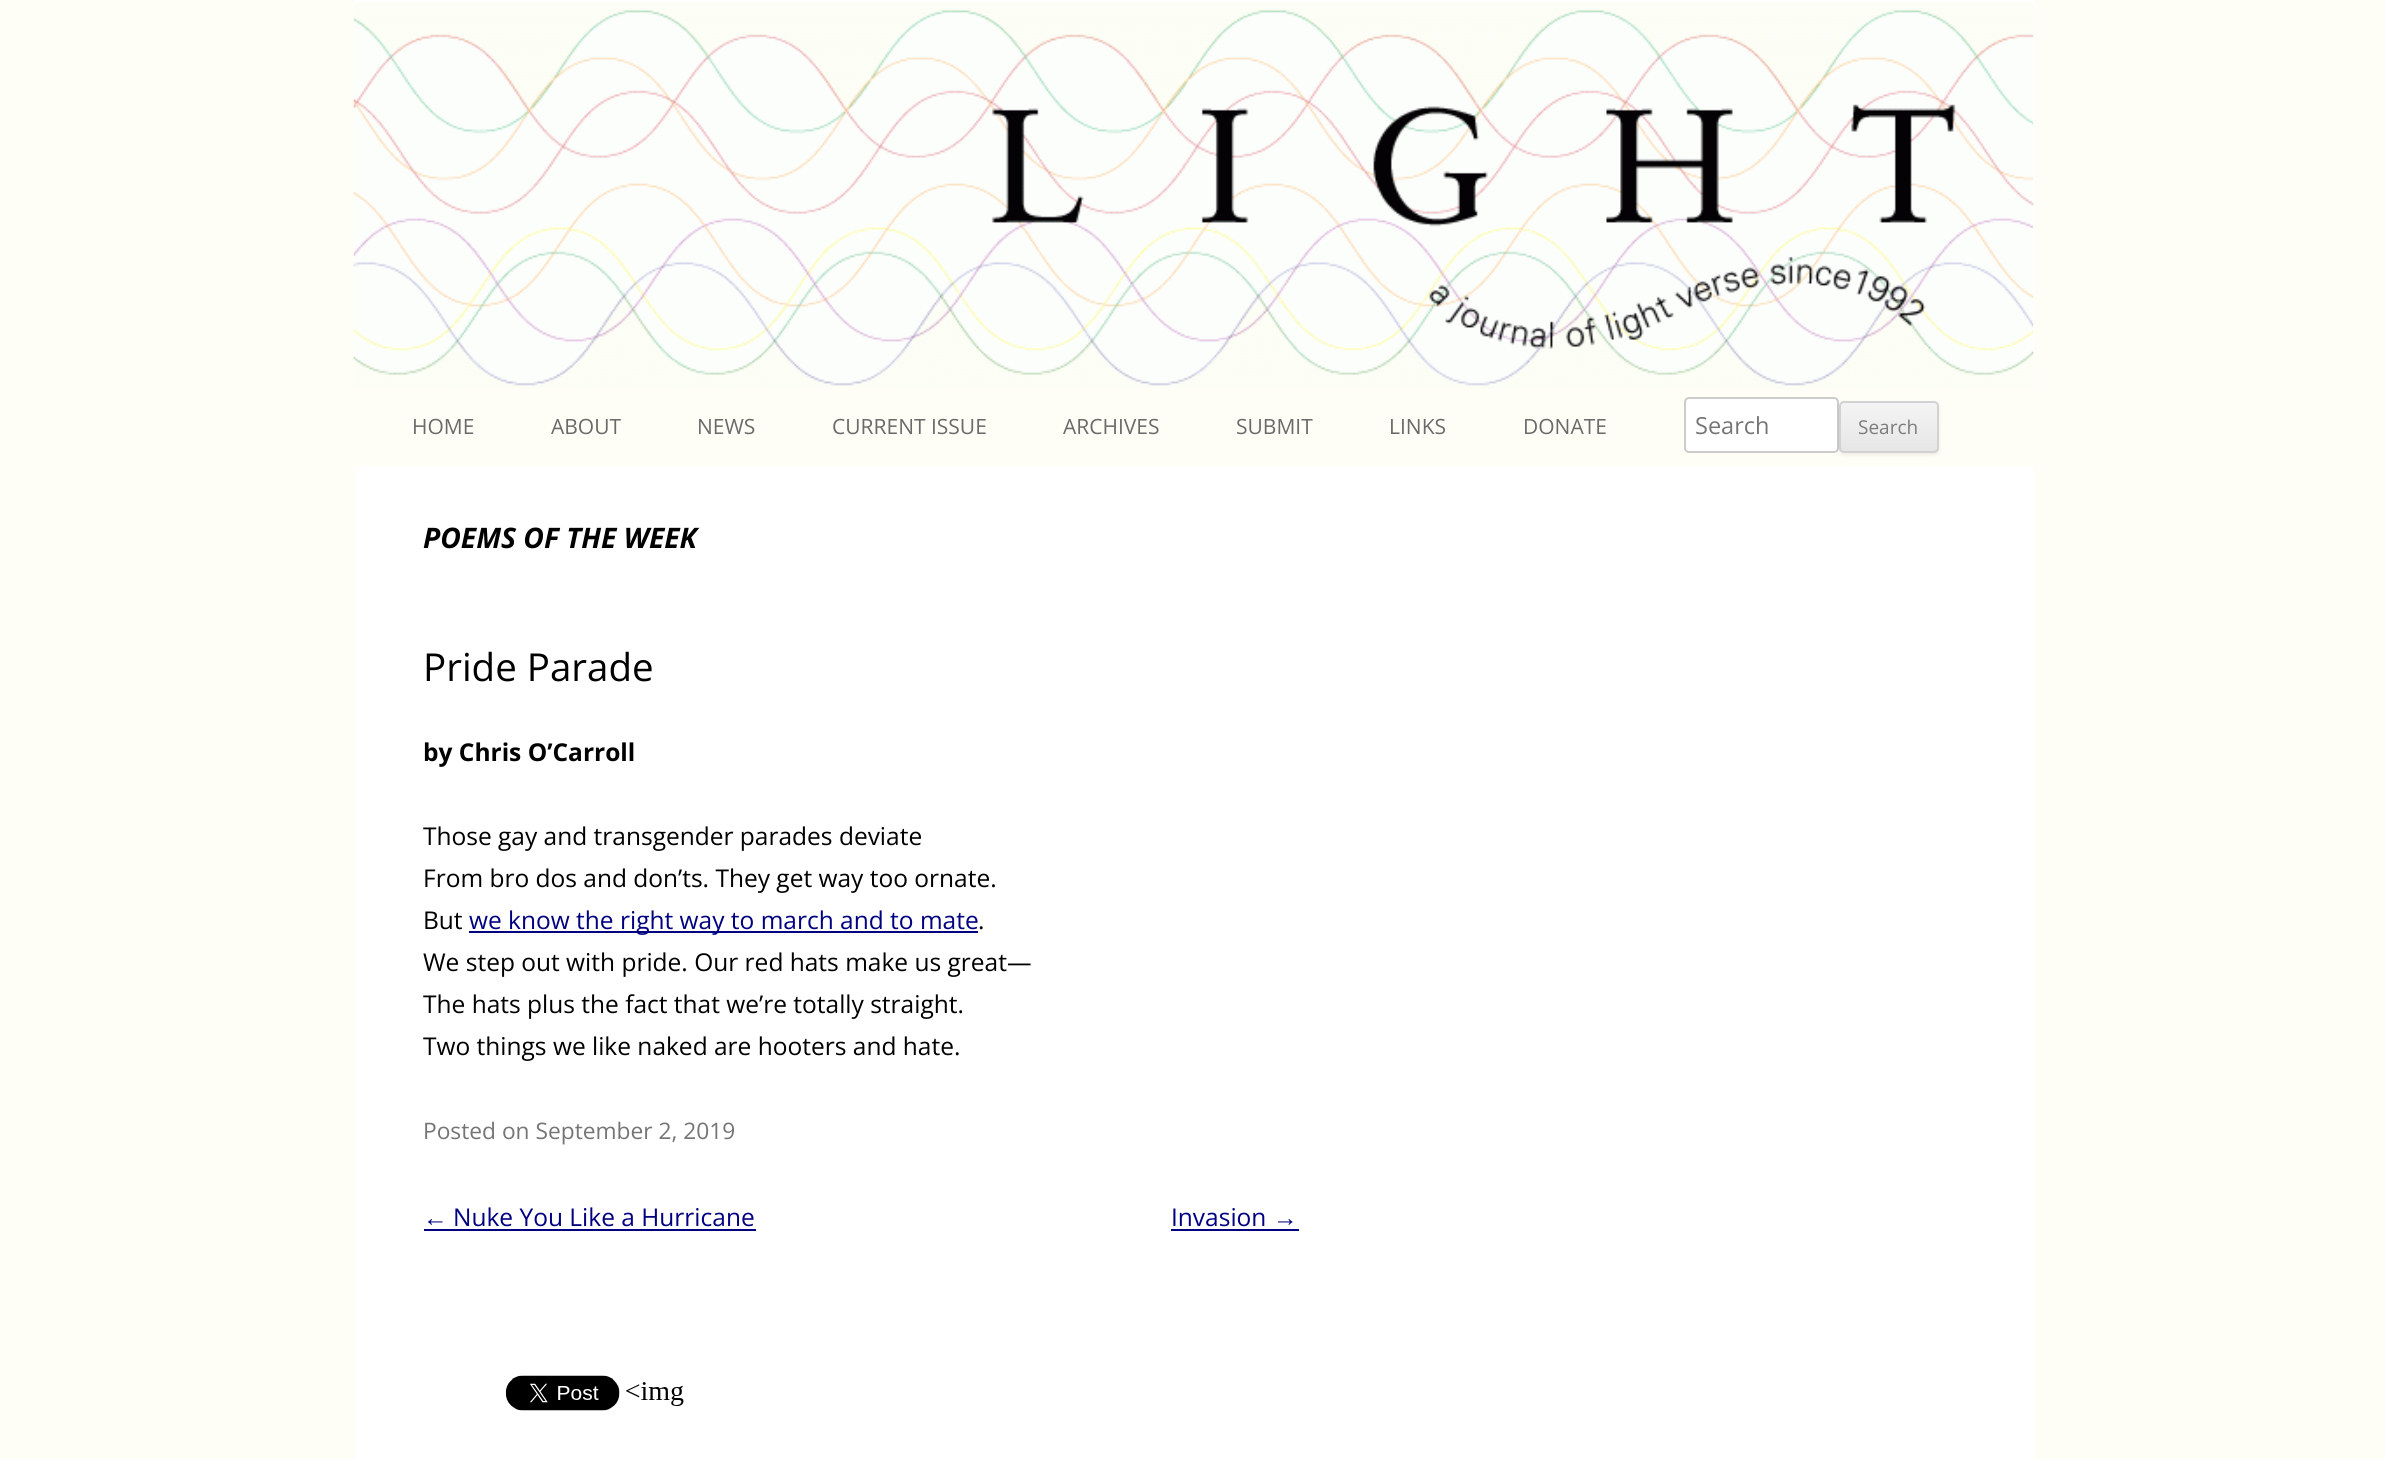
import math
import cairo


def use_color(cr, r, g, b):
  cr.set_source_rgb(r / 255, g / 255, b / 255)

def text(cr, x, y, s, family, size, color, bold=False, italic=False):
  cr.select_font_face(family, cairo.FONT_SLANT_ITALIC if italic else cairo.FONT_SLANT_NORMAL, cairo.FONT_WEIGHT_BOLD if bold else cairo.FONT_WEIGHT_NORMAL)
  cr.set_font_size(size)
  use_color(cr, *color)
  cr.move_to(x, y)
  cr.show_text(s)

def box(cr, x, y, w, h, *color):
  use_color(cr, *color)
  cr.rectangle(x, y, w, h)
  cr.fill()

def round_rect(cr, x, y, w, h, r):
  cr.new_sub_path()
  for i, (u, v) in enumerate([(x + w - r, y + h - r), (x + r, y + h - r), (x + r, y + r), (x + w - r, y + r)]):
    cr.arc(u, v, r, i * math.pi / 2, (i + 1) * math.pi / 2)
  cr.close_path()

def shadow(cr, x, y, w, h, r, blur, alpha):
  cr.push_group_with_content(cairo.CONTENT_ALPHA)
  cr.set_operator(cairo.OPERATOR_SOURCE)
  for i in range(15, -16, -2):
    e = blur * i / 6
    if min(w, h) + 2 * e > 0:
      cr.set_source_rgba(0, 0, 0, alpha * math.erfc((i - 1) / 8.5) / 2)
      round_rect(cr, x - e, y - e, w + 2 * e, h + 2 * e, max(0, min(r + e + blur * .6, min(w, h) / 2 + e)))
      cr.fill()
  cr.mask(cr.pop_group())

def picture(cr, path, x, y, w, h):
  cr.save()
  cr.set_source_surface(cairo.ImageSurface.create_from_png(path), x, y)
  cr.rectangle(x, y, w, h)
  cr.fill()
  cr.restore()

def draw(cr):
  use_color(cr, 255, 254, 246)
  cr.paint()
  box(cr, 354, 0, 1680, 1459, 255, 255, 255)
  picture(cr, "img_01.png", 353, 2, 1681, 392)
  box(cr, 354, 389, 1680, 77, 255, 254, 246)
  use_color(cr, 255, 255, 255)
  round_rect(cr, 1685, 398, 153, 54, 4)
  cr.fill_preserve()
  use_color(cr, 204, 204, 204)
  cr.stroke()
  use_color(cr, 64, 64, 64)
  shadow(cr, 1839, 403, 100, 52, 5, 2, 0.1)
  cr.save()
  round_rect(cr, 1839, 401, 100, 52, 5)
  cr.clip()
  gradient = cairo.LinearGradient(1889, 403, 1889, 452)
  gradient.add_color_stop_rgba(0, 0.957, 0.957, 0.957, 1)
  gradient.add_color_stop_rgba(1, 0.902, 0.902, 0.902, 1)
  cr.set_source(gradient)
  cr.rectangle(1839, 403, 100, 49)
  cr.fill()
  cr.restore()
  round_rect(cr, 1840, 402, 98, 50, 4)
  use_color(cr, 210, 210, 210)
  cr.stroke()
  box(cr, 469, 931, 509, 2, 0, 0, 128)
  box(cr, 424, 1229, 332, 2, 0, 0, 128)
  box(cr, 1171, 1229, 128, 2, 0, 0, 128)
  picture(cr, "img_02.png", 505, 1375, 115, 36)
  picture(cr, "img_03.png", 626, 1382, 58, 24)
  text(cr, 412, 434, "HOME", "Open Sans", 21, (106, 106, 106))
  text(cr, 551, 434, "ABOUT", "Open Sans", 21, (106, 106, 106))
  text(cr, 697, 434, "NEWS", "Open Sans", 21, (106, 106, 106))
  text(cr, 832, 434, "CURRENT ISSUE", "Open Sans", 21, (106, 106, 106))
  text(cr, 1063, 434, "ARCHIVES", "Open Sans", 21, (106, 106, 106))
  text(cr, 1236, 434, "SUBMIT", "Open Sans", 21, (106, 106, 106))
  text(cr, 1389, 434, "LINKS", "Open Sans", 21, (106, 106, 106))
  text(cr, 1523, 434, "DONATE", "Open Sans", 21, (106, 106, 106))
  text(cr, 1695, 434, "Search", "Open Sans", 23.5, (117, 117, 117))
  text(cr, 1858, 434, "Search", "Open Sans", 19, (124, 124, 124))
  text(cr, 423, 548, "POEMS OF THE WEEK", "Open Sans", 28.25, (0, 0, 0), bold=True, italic=True)
  text(cr, 423, 681, "Pride Parade", "Open Sans", 38.5, (0, 0, 0))
  text(cr, 423, 761, "by Chris O’Carroll", "Open Sans", 24.5, (0, 0, 0), bold=True)
  text(cr, 423, 845, "Those gay and transgender parades deviate", "Open Sans", 24.5, (0, 0, 0))
  text(cr, 423, 887, "From bro dos and don’ts. They get way too ornate.", "Open Sans", 24.5, (0, 0, 0))
  text(cr, 423, 929, "But", "Open Sans", 24.5, (0, 0, 0))
  text(cr, 469, 929, "we know the right way to march and to mate", "Open Sans", 24.5, (0, 0, 128))
  text(cr, 978, 929, ".", "Open Sans", 24.5, (0, 0, 0))
  text(cr, 423, 971, "We step out with pride. Our red hats make us great—", "Open Sans", 24.5, (0, 0, 0))
  text(cr, 423, 1013, "The hats plus the fact that we’re totally straight.", "Open Sans", 24.5, (0, 0, 0))
  text(cr, 423, 1055, "Two things we like naked are hooters and hate.", "Open Sans", 24.5, (0, 0, 0))
  text(cr, 423, 1139, "Posted on September 2, 2019", "Open Sans", 22.75, (117, 117, 117))
  text(cr, 423, 1226, "←", "Liberation Sans", 24.5, (0, 0, 128))
  text(cr, 453, 1226, "Nuke You Like a Hurricane", "Open Sans", 24.5, (0, 0, 128))
  text(cr, 1171, 1226, "Invasion", "Open Sans", 24.5, (0, 0, 128))
  text(cr, 1273, 1226, "→", "Liberation Sans", 24.5, (0, 0, 128))


surface = cairo.ImageSurface(cairo.FORMAT_RGB24, 2385, 1459)
cr = cairo.Context(surface)
options = cairo.FontOptions()
options.set_hint_metrics(cairo.HINT_METRICS_OFF)
options.set_hint_style(cairo.HINT_STYLE_NONE)
cr.set_font_options(options)
cr.set_miter_limit(4)
draw(cr)
surface.write_to_png("out.png")
